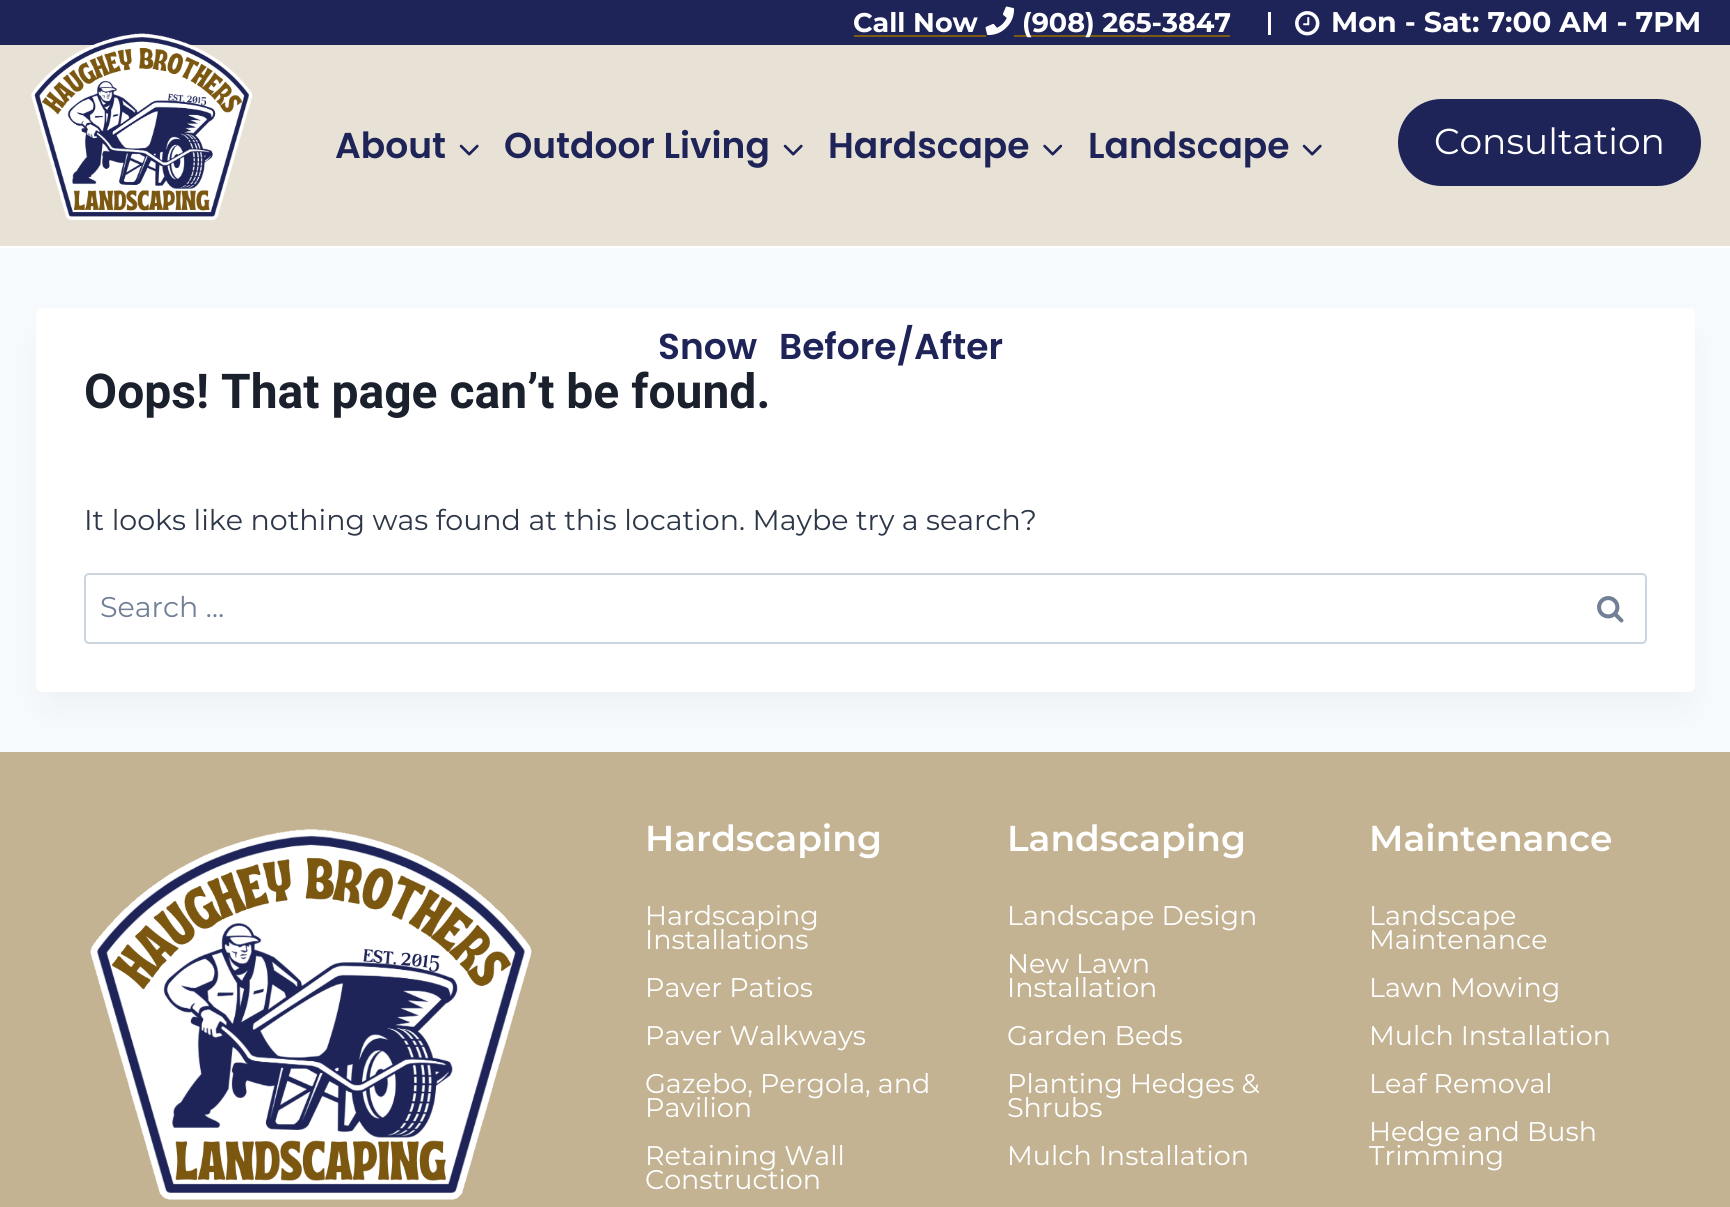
import math
import cairo


def use_color(cr, r, g, b):
  cr.set_source_rgb(r / 255, g / 255, b / 255)

def text(cr, x, y, s, family, size, color, bold=False, italic=False):
  cr.select_font_face(family, cairo.FONT_SLANT_ITALIC if italic else cairo.FONT_SLANT_NORMAL, cairo.FONT_WEIGHT_BOLD if bold else cairo.FONT_WEIGHT_NORMAL)
  cr.set_font_size(size)
  use_color(cr, *color)
  cr.move_to(x, y)
  cr.show_text(s)

def box(cr, x, y, w, h, *color):
  use_color(cr, *color)
  cr.rectangle(x, y, w, h)
  cr.fill()

def round_rect(cr, x, y, w, h, r):
  cr.new_sub_path()
  for i, (u, v) in enumerate([(x + w - r, y + h - r), (x + r, y + h - r), (x + r, y + r), (x + w - r, y + r)]):
    cr.arc(u, v, r, i * math.pi / 2, (i + 1) * math.pi / 2)
  cr.close_path()

def shadow(cr, x, y, w, h, r, blur, alpha):
  cr.push_group_with_content(cairo.CONTENT_ALPHA)
  cr.set_operator(cairo.OPERATOR_SOURCE)
  for i in range(15, -16, -2):
    e = blur * i / 6
    if min(w, h) + 2 * e > 0:
      cr.set_source_rgba(0, 0, 0, alpha * math.erfc((i - 1) / 8.5) / 2)
      round_rect(cr, x - e, y - e, w + 2 * e, h + 2 * e, max(0, min(r + e + blur * .6, min(w, h) / 2 + e)))
      cr.fill()
  cr.mask(cr.pop_group())

def picture(cr, path, x, y, w, h):
  cr.save()
  cr.set_source_surface(cairo.ImageSurface.create_from_png(path), x, y)
  cr.rectangle(x, y, w, h)
  cr.fill()
  cr.restore()

def draw(cr):
  use_color(cr, 247, 250, 252)
  cr.paint()
  box(cr, 0, 246, 1730, 2, 255, 255, 255)
  box(cr, 0, 0, 1730, 45, 30, 36, 88)
  box(cr, 854, 35, 132, 2, 125, 90, 20)
  picture(cr, "img_01.png", 985, 6, 30, 30)
  box(cr, 1014, 35, 216, 2, 125, 90, 20)
  box(cr, 1268, 12, 3, 23, 255, 255, 255)
  picture(cr, "img_02.png", 1295, 11, 25, 25)
  box(cr, 0, 45, 1730, 201, 232, 225, 213)
  picture(cr, "img_03.png", 31, 33, 222, 188)
  picture(cr, "img_04.png", 459, 144, 20, 12)
  picture(cr, "img_04.png", 783, 144, 20, 12)
  picture(cr, "img_05.png", 1043, 144, 20, 12)
  picture(cr, "img_04.png", 1302, 144, 20, 12)
  use_color(cr, 30, 36, 88)
  round_rect(cr, 1398, 99, 303, 87, 43.5)
  cr.fill()
  use_color(cr, 0, 0, 0)
  shadow(cr, 51, 345, 1629, 354, 0, 19, 0.05)
  use_color(cr, 255, 255, 255)
  round_rect(cr, 36, 308, 1659, 384, 6)
  cr.fill()
  round_rect(cr, 85, 574, 1561, 69, 4)
  use_color(cr, 203, 213, 224)
  cr.stroke()
  picture(cr, "img_06.png", 1597, 596, 27, 27)
  box(cr, 0, 752, 1730, 455, 195, 179, 147)
  picture(cr, "img_07.png", 90, 829, 442, 371)
  text(cr, 853, 32, "Call Now", "Montserrat", 27, (255, 255, 255), bold=True)
  text(cr, 1022, 32, "(908) 265-3847", "Montserrat", 27, (255, 255, 255), bold=True)
  text(cr, 1331, 32, "Mon - Sat: 7:00 AM - 7PM", "Montserrat", 28.5, (255, 255, 255), bold=True)
  text(cr, 335, 158, "About", "Poppins SemiBold", 36, (30, 36, 88))
  text(cr, 504, 158, "Outdoor Living", "Poppins SemiBold", 36, (30, 36, 88))
  text(cr, 828, 158, "Hardscape", "Poppins SemiBold", 36, (30, 36, 88))
  text(cr, 1088, 158, "Landscape", "Poppins SemiBold", 36, (30, 36, 88))
  text(cr, 658, 359, "Snow", "Poppins SemiBold", 36, (30, 36, 88))
  text(cr, 779, 359, "Before/After", "Poppins SemiBold", 36, (30, 36, 88))
  text(cr, 1434, 154, "Consultation", "Montserrat", 36, (255, 255, 255))
  text(cr, 84, 408, "Oops! That page can’t be found.", "Roboto", 48, (26, 32, 44), bold=True)
  text(cr, 84, 530, "It looks like nothing was found at this location. Maybe try a search?", "Montserrat", 28.5, (45, 55, 72))
  text(cr, 100, 617, "Search …", "Montserrat", 28.5, (113, 128, 150))
  text(cr, 645, 851, "Hardscaping", "Montserrat SemiBold", 36, (255, 255, 255))
  text(cr, 645, 925, "Hardscaping", "Montserrat", 27, (255, 255, 255))
  text(cr, 645, 949, "Installations", "Montserrat", 27, (255, 255, 255))
  text(cr, 645, 997, "Paver Patios", "Montserrat", 27, (255, 255, 255))
  text(cr, 645, 1045, "Paver Walkways", "Montserrat", 27, (255, 255, 255))
  text(cr, 645, 1093, "Gazebo, Pergola, and", "Montserrat", 27, (255, 255, 255))
  text(cr, 645, 1117, "Pavilion", "Montserrat", 27, (255, 255, 255))
  text(cr, 645, 1165, "Retaining Wall", "Montserrat", 27, (255, 255, 255))
  text(cr, 645, 1189, "Construction", "Montserrat", 27, (255, 255, 255))
  text(cr, 1007, 851, "Landscaping", "Montserrat SemiBold", 36, (255, 255, 255))
  text(cr, 1007, 925, "Landscape Design", "Montserrat", 27, (255, 255, 255))
  text(cr, 1007, 973, "New Lawn", "Montserrat", 27, (255, 255, 255))
  text(cr, 1007, 997, "Installation", "Montserrat", 27, (255, 255, 255))
  text(cr, 1007, 1045, "Garden Beds", "Montserrat", 27, (255, 255, 255))
  text(cr, 1007, 1093, "Planting Hedges &", "Montserrat", 27, (255, 255, 255))
  text(cr, 1007, 1117, "Shrubs", "Montserrat", 27, (255, 255, 255))
  text(cr, 1007, 1165, "Mulch Installation", "Montserrat", 27, (255, 255, 255))
  text(cr, 1369, 851, "Maintenance", "Montserrat SemiBold", 36, (255, 255, 255))
  text(cr, 1369, 925, "Landscape", "Montserrat", 27, (255, 255, 255))
  text(cr, 1369, 949, "Maintenance", "Montserrat", 27, (255, 255, 255))
  text(cr, 1369, 997, "Lawn Mowing", "Montserrat", 27, (255, 255, 255))
  text(cr, 1369, 1045, "Mulch Installation", "Montserrat", 27, (255, 255, 255))
  text(cr, 1369, 1093, "Leaf Removal", "Montserrat", 27, (255, 255, 255))
  text(cr, 1369, 1141, "Hedge and Bush", "Montserrat", 27, (255, 255, 255))
  text(cr, 1369, 1165, "Trimming", "Montserrat", 27, (255, 255, 255))


surface = cairo.ImageSurface(cairo.FORMAT_RGB24, 1730, 1207)
cr = cairo.Context(surface)
options = cairo.FontOptions()
options.set_hint_metrics(cairo.HINT_METRICS_OFF)
options.set_hint_style(cairo.HINT_STYLE_NONE)
cr.set_font_options(options)
cr.set_miter_limit(4)
draw(cr)
surface.write_to_png("out.png")
